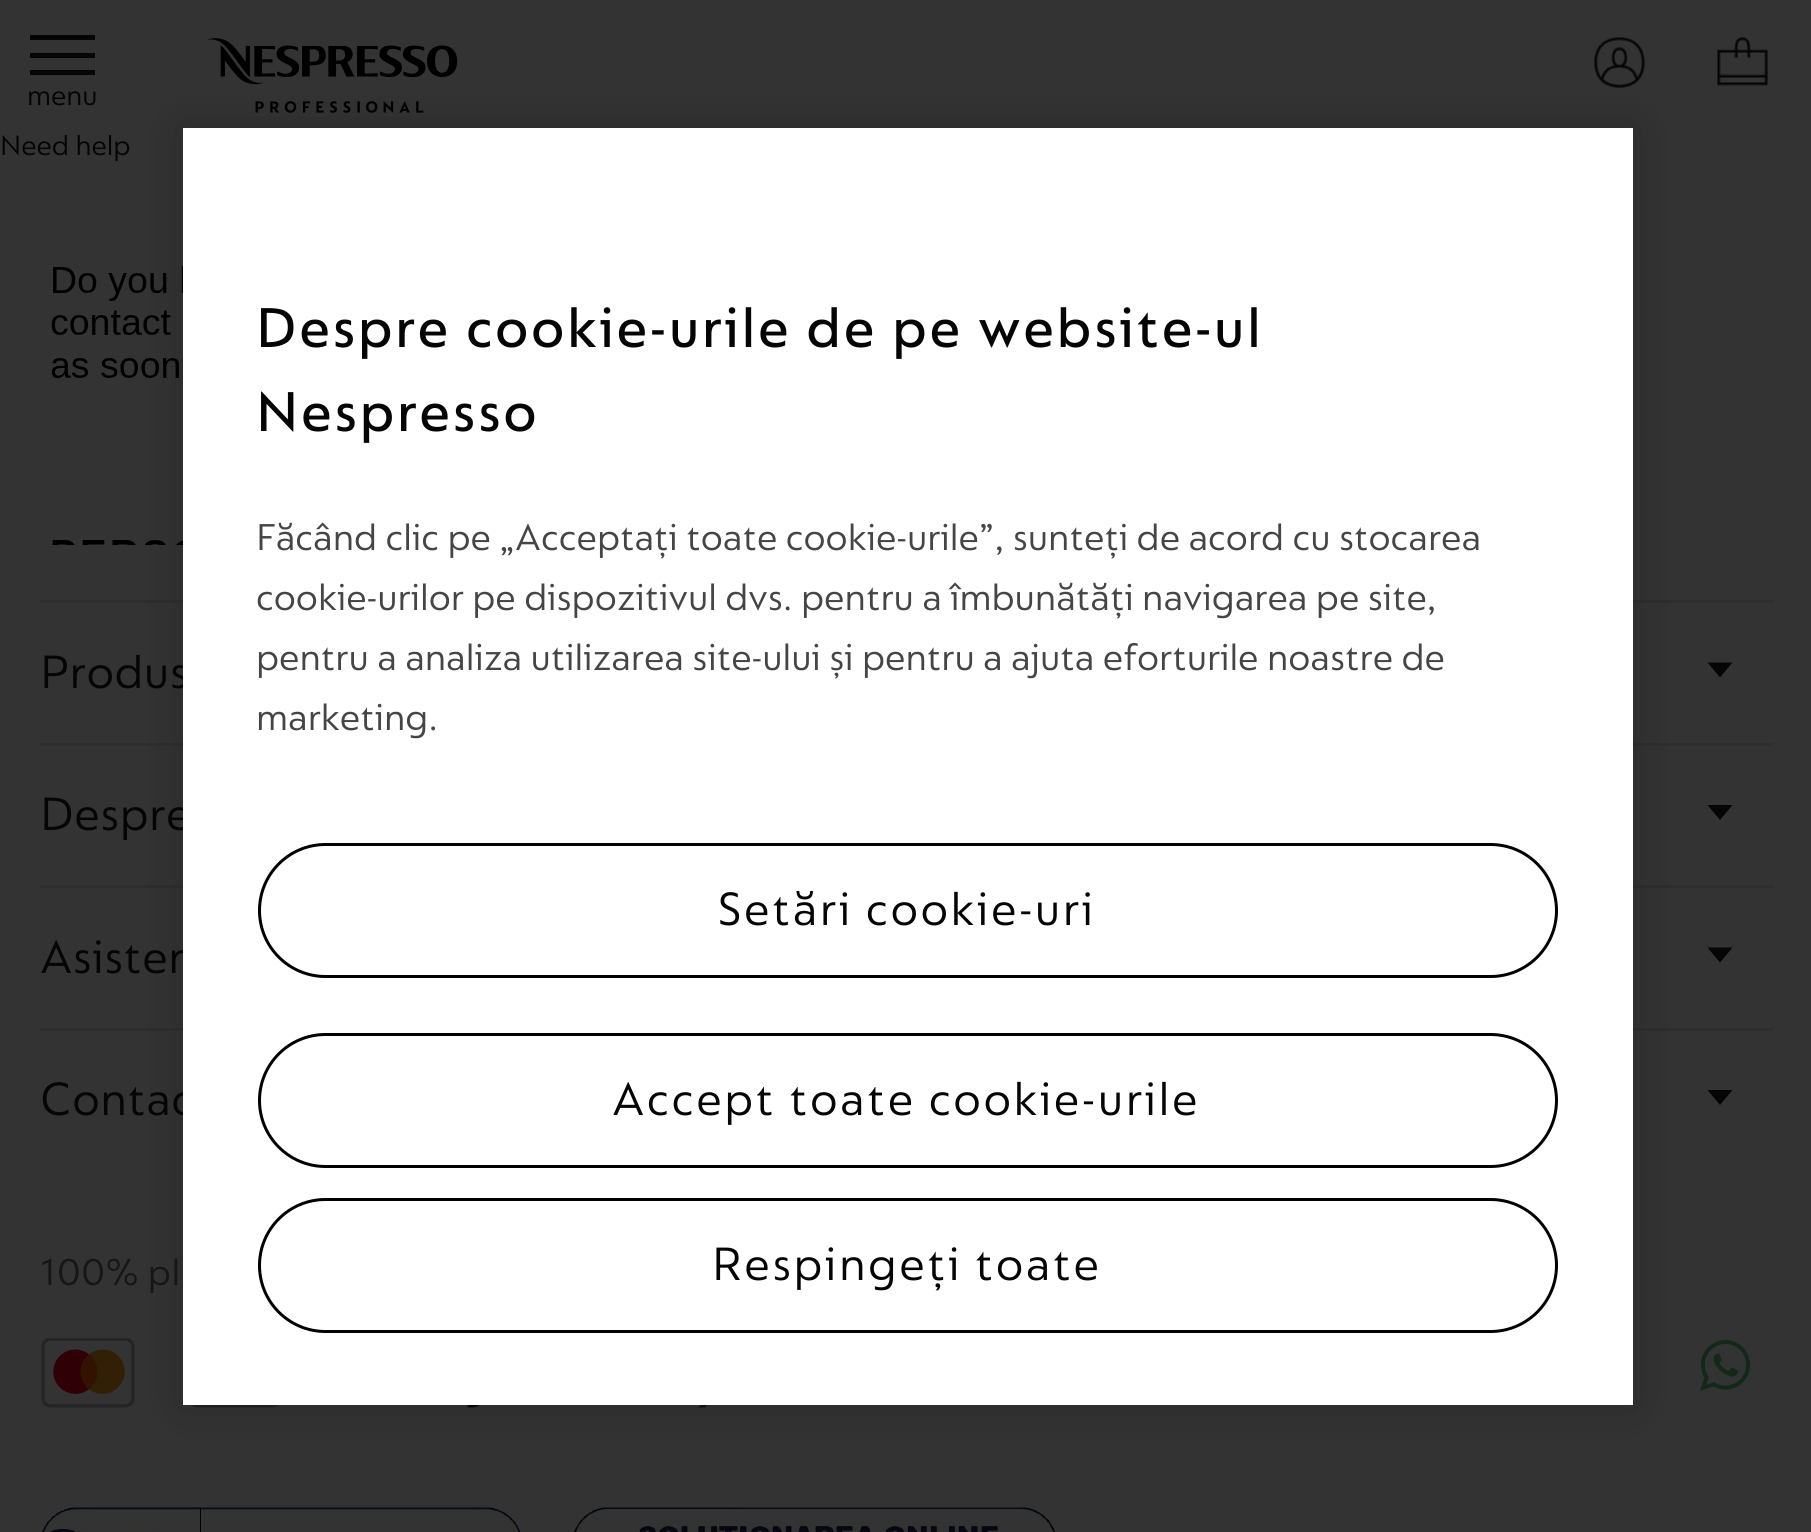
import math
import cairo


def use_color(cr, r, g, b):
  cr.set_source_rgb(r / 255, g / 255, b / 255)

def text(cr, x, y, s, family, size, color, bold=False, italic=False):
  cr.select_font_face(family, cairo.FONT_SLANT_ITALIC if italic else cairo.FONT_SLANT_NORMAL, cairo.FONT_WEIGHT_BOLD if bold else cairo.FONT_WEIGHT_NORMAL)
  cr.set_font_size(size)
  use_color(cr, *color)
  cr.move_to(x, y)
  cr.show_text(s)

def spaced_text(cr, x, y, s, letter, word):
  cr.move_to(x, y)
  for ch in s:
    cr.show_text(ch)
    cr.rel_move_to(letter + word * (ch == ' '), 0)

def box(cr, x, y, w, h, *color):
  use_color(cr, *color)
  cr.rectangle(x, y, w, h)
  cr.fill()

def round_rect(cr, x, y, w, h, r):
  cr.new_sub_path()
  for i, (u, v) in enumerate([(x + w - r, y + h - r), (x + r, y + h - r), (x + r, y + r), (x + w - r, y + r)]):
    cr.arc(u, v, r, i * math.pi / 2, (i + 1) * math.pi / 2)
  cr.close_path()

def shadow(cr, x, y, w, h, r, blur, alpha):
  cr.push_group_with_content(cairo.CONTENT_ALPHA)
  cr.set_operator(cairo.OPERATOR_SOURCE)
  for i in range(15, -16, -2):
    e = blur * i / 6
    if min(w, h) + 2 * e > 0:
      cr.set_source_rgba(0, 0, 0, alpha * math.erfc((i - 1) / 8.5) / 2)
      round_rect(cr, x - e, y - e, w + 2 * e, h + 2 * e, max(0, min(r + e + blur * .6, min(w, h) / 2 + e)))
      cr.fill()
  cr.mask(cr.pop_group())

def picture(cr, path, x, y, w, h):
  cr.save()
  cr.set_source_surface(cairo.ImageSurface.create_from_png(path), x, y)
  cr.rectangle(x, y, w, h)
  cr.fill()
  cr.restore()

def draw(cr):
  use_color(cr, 51, 51, 51)
  cr.paint()
  box(cr, 30, 53, 65, 5, 5, 5, 5)
  box(cr, 30, 35, 65, 5, 5, 5, 5)
  box(cr, 30, 70, 65, 5, 5, 5, 5)
  picture(cr, "img_01.png", 208, 38, 250, 75)
  picture(cr, "img_02.png", 1594, 37, 51, 51)
  picture(cr, "img_03.png", 1717, 37, 51, 49)
  picture(cr, "img_04.png", 51, 266, 132, 279)
  box(cr, 40, 600, 1733, 3, 46, 46, 46)
  use_color(cr, 5, 5, 5)
  cr.new_path()
  cr.move_to(1707.5, 662.5)
  cr.line_to(1732.5, 662.5)
  cr.line_to(1720, 677.5)
  cr.close_path()
  cr.fill()
  box(cr, 40, 743, 1733, 3, 46, 46, 46)
  use_color(cr, 5, 5, 5)
  cr.new_path()
  cr.move_to(1707.5, 805)
  cr.line_to(1732.5, 805)
  cr.line_to(1720, 820)
  cr.close_path()
  cr.fill()
  box(cr, 40, 885, 1733, 3, 46, 46, 46)
  use_color(cr, 5, 5, 5)
  cr.new_path()
  cr.move_to(1707.5, 947.5)
  cr.line_to(1732.5, 947.5)
  cr.line_to(1720, 962.5)
  cr.close_path()
  cr.fill()
  box(cr, 40, 1028, 1733, 3, 46, 46, 46)
  use_color(cr, 5, 5, 5)
  cr.new_path()
  cr.move_to(1707.5, 1090)
  cr.line_to(1732.5, 1090)
  cr.line_to(1720, 1105)
  cr.close_path()
  cr.fill()
  picture(cr, "img_05.png", 41, 1338, 94, 70)
  picture(cr, "img_06.png", 192, 1405, 87, 3)
  picture(cr, "img_07.png", 467, 1405, 13, 3)
  picture(cr, "img_08.png", 699, 1405, 8, 3)
  picture(cr, "img_09.png", 1700, 1340, 50, 51)
  picture(cr, "img_10.png", 42, 1507, 478, 25)
  picture(cr, "img_11.png", 574, 1507, 481, 25)
  use_color(cr, 0, 0, 0)
  shadow(cr, 183, 128, 1450, 1277, 0, 22.5, 0.2)
  text(cr, 27, 105, "menu", "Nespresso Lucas", 30, (5, 5, 5))
  text(cr, 0, 155, "Need help", "Nespresso Lucas", 30, (5, 5, 5))
  cr.set_font_size(50)
  spaced_text(cr, 40, 688, "Produs", 0.5, 0)
  spaced_text(cr, 40, 830, "Despre", 0.5, 0)
  spaced_text(cr, 40, 973, "Asisten", 0.5, 0)
  spaced_text(cr, 40, 1115, "Contac", 0.5, 0)
  cr.set_font_size(40)
  use_color(cr, 22, 22, 22)
  spaced_text(cr, 40, 1285, "100% pl", 0.5, 0)
  box(cr, 183, 128, 1450, 1277, 255, 255, 255)
  cr.select_font_face("Nespresso Lucas Medium")
  cr.set_font_size(60)
  use_color(cr, 5, 5, 5)
  spaced_text(cr, 256, 347, "Despre cookie-urile de pe website-ul", 2.5, 0)
  spaced_text(cr, 256, 431, "Nespresso", 2.5, 0)
  text(cr, 256, 550, "Făcând clic pe „Acceptați toate cookie-urile”, sunteți de acord cu stocarea", "Nespresso Lucas", 40, (69, 69, 71))
  text(cr, 256, 610, "cookie-urilor pe dispozitivul dvs. pentru a îmbunătăți navigarea pe site,", "Nespresso Lucas", 40, (69, 69, 71))
  text(cr, 256, 670, "pentru a analiza utilizarea site-ului și pentru a ajuta eforturile noastre de", "Nespresso Lucas", 40, (69, 69, 71))
  text(cr, 256, 730, "marketing.", "Nespresso Lucas", 40, (69, 69, 71))
  round_rect(cr, 259.5, 844.5, 1297, 132, 66)
  use_color(cr, 0, 0, 0)
  cr.set_line_width(3)
  cr.stroke()
  cr.set_font_size(50)
  use_color(cr, 5, 5, 5)
  spaced_text(cr, 717, 925, "Setări cookie-uri", 2.5, 0)
  round_rect(cr, 259.5, 1034.5, 1297, 132, 66)
  use_color(cr, 0, 0, 0)
  cr.stroke()
  use_color(cr, 5, 5, 5)
  spaced_text(cr, 612, 1115, "Accept toate cookie-urile", 2.5, 0)
  round_rect(cr, 259.5, 1199.5, 1297, 132, 66)
  use_color(cr, 0, 0, 0)
  cr.stroke()
  use_color(cr, 5, 5, 5)
  spaced_text(cr, 712, 1280, "Respingeți toate", 2.5, 0)


surface = cairo.ImageSurface(cairo.FORMAT_RGB24, 1811, 1532)
cr = cairo.Context(surface)
options = cairo.FontOptions()
options.set_hint_metrics(cairo.HINT_METRICS_OFF)
options.set_hint_style(cairo.HINT_STYLE_NONE)
cr.set_font_options(options)
cr.set_miter_limit(4)
draw(cr)
surface.write_to_png("out.png")
